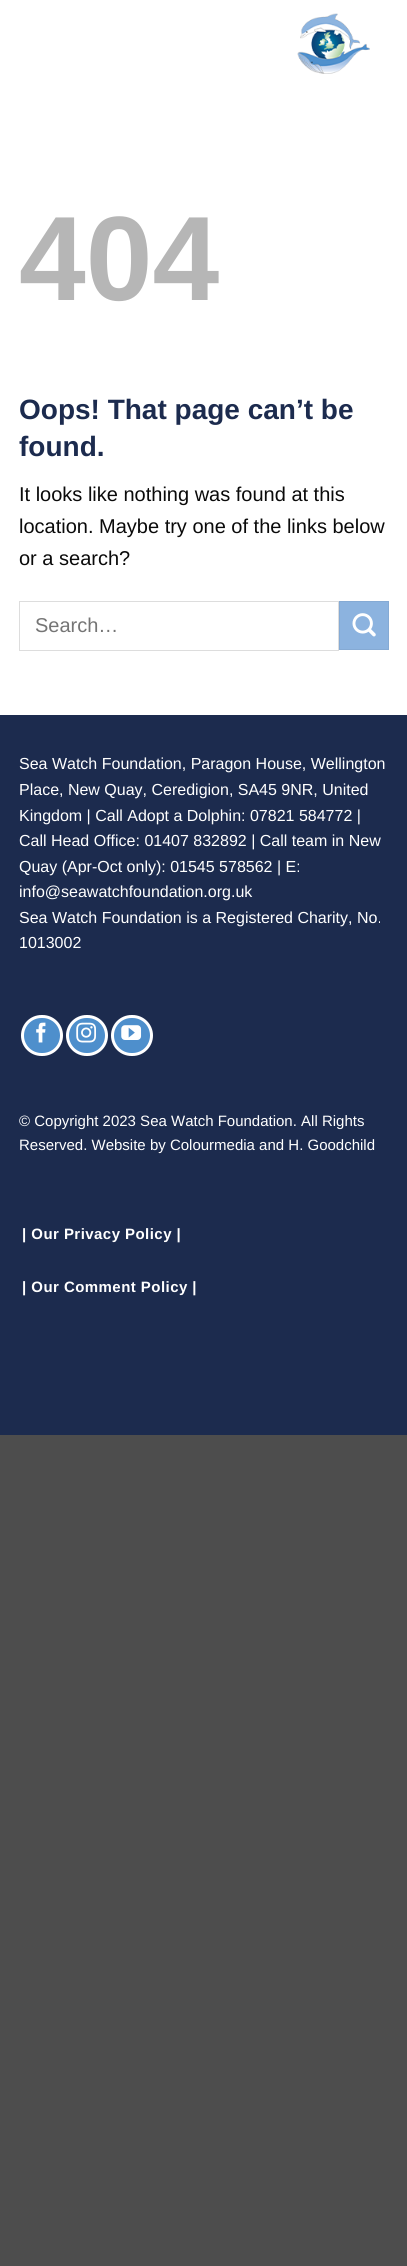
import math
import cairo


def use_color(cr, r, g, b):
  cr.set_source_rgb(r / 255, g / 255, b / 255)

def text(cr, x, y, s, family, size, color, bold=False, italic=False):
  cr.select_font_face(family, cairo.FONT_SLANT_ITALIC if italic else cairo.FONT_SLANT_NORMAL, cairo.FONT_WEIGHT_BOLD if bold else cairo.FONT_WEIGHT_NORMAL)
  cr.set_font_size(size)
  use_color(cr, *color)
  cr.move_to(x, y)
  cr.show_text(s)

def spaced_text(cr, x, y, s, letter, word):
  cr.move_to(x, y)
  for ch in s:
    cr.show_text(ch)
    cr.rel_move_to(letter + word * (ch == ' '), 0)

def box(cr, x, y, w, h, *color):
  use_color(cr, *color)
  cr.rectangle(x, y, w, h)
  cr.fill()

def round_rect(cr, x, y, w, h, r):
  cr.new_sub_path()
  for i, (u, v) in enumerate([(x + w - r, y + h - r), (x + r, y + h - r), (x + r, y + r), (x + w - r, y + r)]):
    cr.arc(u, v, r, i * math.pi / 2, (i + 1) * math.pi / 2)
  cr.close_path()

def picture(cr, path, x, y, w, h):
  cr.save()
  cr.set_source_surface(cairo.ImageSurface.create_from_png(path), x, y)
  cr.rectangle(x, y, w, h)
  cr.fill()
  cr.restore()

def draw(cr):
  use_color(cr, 77, 77, 77)
  cr.paint()
  box(cr, 0, 0, 407, 715, 255, 255, 255)
  picture(cr, "img_01.png", 297, 13, 73, 61)
  cr.rectangle(19.5, 601.5, 319, 49)
  use_color(cr, 221, 221, 221)
  cr.set_line_width(1)
  cr.stroke()
  use_color(cr, 140, 179, 223)
  cr.rectangle(339.5, 601.5, 49, 48)
  cr.fill_preserve()
  use_color(cr, 133, 170, 212)
  cr.stroke()
  picture(cr, "img_02.png", 352, 613, 24, 24)
  box(cr, 0, 715, 407, 720, 28, 43, 78)
  use_color(cr, 78, 143, 204)
  round_rect(cr, 22.5, 1016.5, 39, 38, 19)
  cr.fill_preserve()
  use_color(cr, 255, 255, 255)
  cr.set_line_width(3)
  cr.stroke()
  picture(cr, "img_03.png", 36, 1022, 10, 21)
  use_color(cr, 78, 143, 204)
  round_rect(cr, 67.5, 1016.5, 39, 38, 19)
  cr.fill_preserve()
  use_color(cr, 255, 255, 255)
  cr.stroke()
  picture(cr, "img_04.png", 76, 1022, 20, 21)
  use_color(cr, 78, 143, 204)
  round_rect(cr, 112.5, 1016.5, 39, 38, 19)
  cr.fill_preserve()
  use_color(cr, 255, 255, 255)
  cr.stroke()
  picture(cr, "img_05.png", 121, 1025, 21, 15)
  text(cr, 19, 300, "404", "Liberation Sans", 120, (182, 182, 182), bold=True)
  text(cr, 19, 419, "Oops! That page can’t be", "Liberation Sans", 28, (28, 43, 78), bold=True)
  text(cr, 19, 456, "found.", "Liberation Sans", 28, (28, 43, 78), bold=True)
  text(cr, 19, 501, "It looks like nothing was found at this", "Liberation Sans", 20, (10, 10, 10))
  text(cr, 19, 533, "location. Maybe try one of the links below", "Liberation Sans", 20, (10, 10, 10))
  text(cr, 19, 565, "or a search?", "Liberation Sans", 20, (10, 10, 10))
  text(cr, 35, 632, "Search…", "Liberation Sans", 20, (117, 117, 117))
  text(cr, 19, 769, "Sea Watch Foundation, Paragon House, Wellington", "Liberation Sans", 16, (255, 255, 255))
  text(cr, 19, 795, "Place, New Quay, Ceredigion, SA45 9NR, United", "Liberation Sans", 16, (255, 255, 255))
  text(cr, 19, 821, "Kingdom | Call Adopt a Dolphin: 07821 584772 |", "Liberation Sans", 16, (255, 255, 255))
  text(cr, 19, 846, "Call Head Office: 01407 832892 | Call team in New", "Liberation Sans", 16, (255, 255, 255))
  text(cr, 19, 872, "Quay (Apr-Oct only): 01545 578562 | E:", "Liberation Sans", 16, (255, 255, 255))
  text(cr, 19, 897, "info@seawatchfoundation.org.uk", "Liberation Sans", 16, (255, 255, 255))
  text(cr, 19, 923, "Sea Watch Foundation is a Registered Charity, No.", "Liberation Sans", 16, (255, 255, 255))
  text(cr, 19, 948, "1013002", "Liberation Sans", 16, (255, 255, 255))
  text(cr, 19, 1126, "© Copyright 2023 Sea Watch Foundation. All Rights", "Liberation Sans", 15, (255, 255, 255))
  text(cr, 19, 1150, "Reserved. Website by Colourmedia and H. Goodchild", "Liberation Sans", 15, (255, 255, 255))
  cr.select_font_face("Liberation Sans", cairo.FONT_SLANT_NORMAL, cairo.FONT_WEIGHT_BOLD)
  spaced_text(cr, 22, 1239, "| Our Privacy Policy |", 0.45, 0)
  spaced_text(cr, 22, 1292, "| Our Comment Policy |", 0.45, 0)


surface = cairo.ImageSurface(cairo.FORMAT_RGB24, 407, 2266)
cr = cairo.Context(surface)
options = cairo.FontOptions()
options.set_hint_metrics(cairo.HINT_METRICS_OFF)
options.set_hint_style(cairo.HINT_STYLE_NONE)
cr.set_font_options(options)
cr.set_miter_limit(4)
draw(cr)
surface.write_to_png("out.png")
